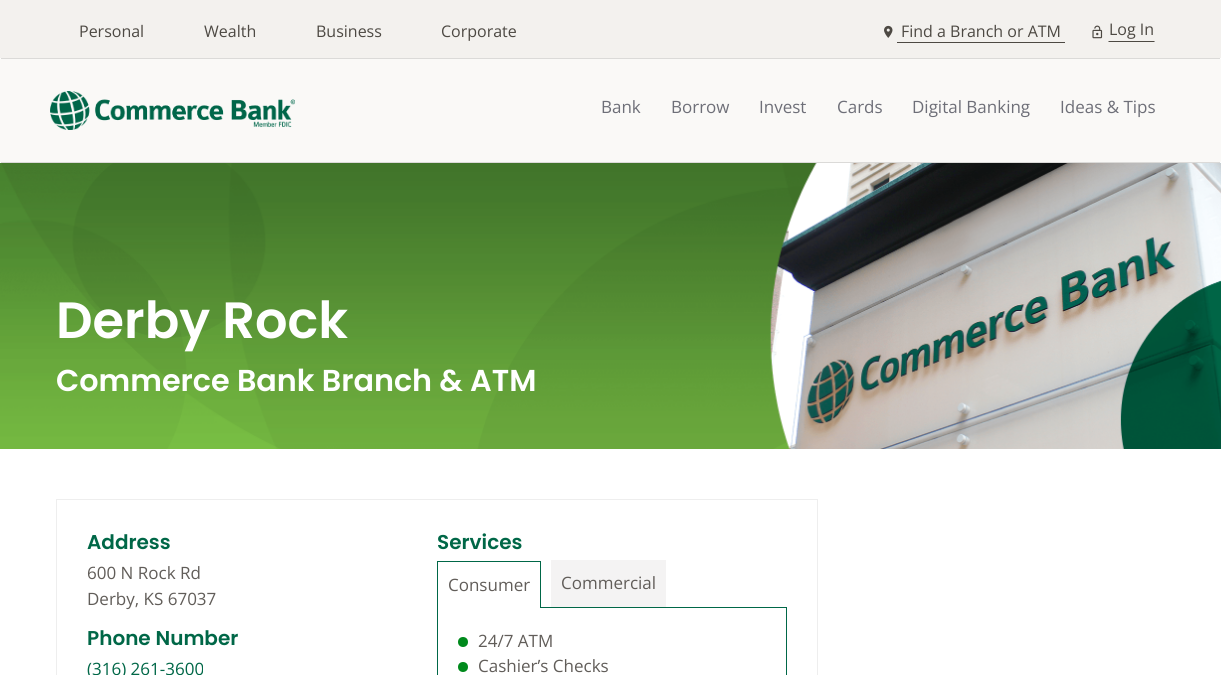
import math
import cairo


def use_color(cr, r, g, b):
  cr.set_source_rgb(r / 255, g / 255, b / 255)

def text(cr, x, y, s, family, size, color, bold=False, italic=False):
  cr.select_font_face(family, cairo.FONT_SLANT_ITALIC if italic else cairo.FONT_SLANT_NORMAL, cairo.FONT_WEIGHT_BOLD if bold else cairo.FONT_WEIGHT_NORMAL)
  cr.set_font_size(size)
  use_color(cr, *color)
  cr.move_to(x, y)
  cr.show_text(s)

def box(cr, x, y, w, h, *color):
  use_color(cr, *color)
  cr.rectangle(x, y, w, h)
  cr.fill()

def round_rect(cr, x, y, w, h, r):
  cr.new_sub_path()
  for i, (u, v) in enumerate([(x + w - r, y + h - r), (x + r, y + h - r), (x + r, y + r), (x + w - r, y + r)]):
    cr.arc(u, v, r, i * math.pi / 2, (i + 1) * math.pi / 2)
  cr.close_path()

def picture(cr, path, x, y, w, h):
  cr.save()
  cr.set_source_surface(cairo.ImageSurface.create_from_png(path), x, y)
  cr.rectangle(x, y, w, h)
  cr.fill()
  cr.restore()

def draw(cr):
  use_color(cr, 255, 255, 255)
  cr.paint()
  gradient = cairo.LinearGradient(0, 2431, 1221, 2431)
  gradient.add_color_stop_rgba(0, 0.992, 0.992, 0.988, 1)
  gradient.add_color_stop_rgba(0.5, 0.992, 0.992, 0.988, 1)
  gradient.add_color_stop_rgba(0.51, 1, 1, 1, 1)
  gradient.add_color_stop_rgba(1, 1, 1, 1, 1)
  cr.set_source(gradient)
  cr.rectangle(0, 58, 613, 105)
  cr.fill()
  box(cr, 0, 0, 1221, 58, 243, 241, 238)
  picture(cr, "img_01.png", 884, 25, 9, 13)
  box(cr, 897, 42, 168, 1, 77, 73, 67)
  picture(cr, "img_02.png", 1092, 25, 11, 14)
  cr.new_path()
  cr.move_to(1155, 42)
  cr.line_to(1108, 42)
  cr.line_to(1109, 41)
  cr.line_to(1154, 41)
  cr.close_path()
  cr.fill()
  use_color(cr, 250, 249, 247)
  round_rect(cr, 0, 58, 1221, 105, 2.5)
  cr.fill()
  box(cr, 1, 58, 1219, 1, 219, 218, 216)
  box(cr, 1, 162, 1219, 1, 219, 218, 216)
  picture(cr, "img_03.png", 50, 91, 245, 39)
  picture(cr, "img_04.png", 0, 163, 1221, 286)
  cr.rectangle(56.5, 499.5, 761, 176)
  use_color(cr, 238, 238, 238)
  cr.set_line_width(1)
  cr.stroke()
  cr.rectangle(437.5, 607.5, 349, 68)
  use_color(cr, 0, 103, 71)
  cr.stroke()
  box(cr, 438, 607, 102, 1, 255, 255, 255)
  box(cr, 437, 561, 104, 1, 0, 103, 71)
  box(cr, 540, 561, 1, 47, 0, 103, 71)
  box(cr, 437, 561, 1, 47, 0, 103, 71)
  box(cr, 551, 560, 115, 47, 244, 243, 243)
  use_color(cr, 0, 138, 28)
  cr.arc(463, 642, 5, 0, 2 * math.pi)
  cr.fill()
  cr.arc(463, 667, 5, 0, 2 * math.pi)
  cr.fill()
  text(cr, 79, 37, "Personal", "Open Sans", 16, (77, 73, 67))
  text(cr, 204, 37, "Wealth", "Open Sans", 16, (77, 73, 67))
  text(cr, 316, 37, "Business", "Open Sans", 16, (77, 73, 67))
  text(cr, 441, 37, "Corporate", "Open Sans", 16, (77, 73, 67))
  text(cr, 901, 37, "Find a Branch or ATM", "Open Sans", 16, (77, 73, 67))
  text(cr, 1109, 35, "Log In", "Open Sans", 16, (77, 73, 67))
  text(cr, 601, 113, "Bank", "Open Sans", 17, (110, 111, 120))
  text(cr, 671, 113, "Borrow", "Open Sans", 17, (110, 111, 120))
  text(cr, 759, 113, "Invest", "Open Sans", 17, (110, 111, 120))
  text(cr, 837, 113, "Cards", "Open Sans", 17, (110, 111, 120))
  text(cr, 912, 113, "Digital Banking", "Open Sans", 17, (110, 111, 120))
  text(cr, 1060, 113, "Ideas & Tips", "Open Sans", 17, (110, 111, 120))
  text(cr, 56, 338, "Derby Rock", "Poppins SemiBold", 51, (255, 255, 255))
  text(cr, 56, 391, "Commerce Bank Branch & ATM", "Poppins SemiBold", 30.25, (255, 255, 255))
  text(cr, 87, 549, "Address", "Poppins SemiBold", 20, (0, 103, 71))
  text(cr, 87, 579, "600 N Rock Rd", "Open Sans", 17, (97, 93, 89))
  text(cr, 87, 605, "Derby, KS 67037", "Open Sans", 17, (97, 93, 89))
  text(cr, 87, 645, "Phone Number", "Poppins SemiBold", 20, (0, 103, 71))
  text(cr, 87, 675, "(316) 261-3600", "Open Sans", 17, (0, 103, 71))
  text(cr, 437, 549, "Services", "Poppins SemiBold", 20, (0, 103, 71))
  text(cr, 448, 591, "Consumer", "Open Sans", 17, (97, 93, 89))
  text(cr, 561, 589, "Commercial", "Open Sans", 17, (97, 93, 89))
  text(cr, 478, 647, "24/7 ATM", "Open Sans", 17, (97, 93, 89))
  text(cr, 478, 672, "Cashier’s Checks", "Open Sans", 17, (97, 93, 89))


surface = cairo.ImageSurface(cairo.FORMAT_RGB24, 1221, 675)
cr = cairo.Context(surface)
options = cairo.FontOptions()
options.set_hint_metrics(cairo.HINT_METRICS_OFF)
options.set_hint_style(cairo.HINT_STYLE_NONE)
cr.set_font_options(options)
cr.set_miter_limit(4)
draw(cr)
surface.write_to_png("out.png")
